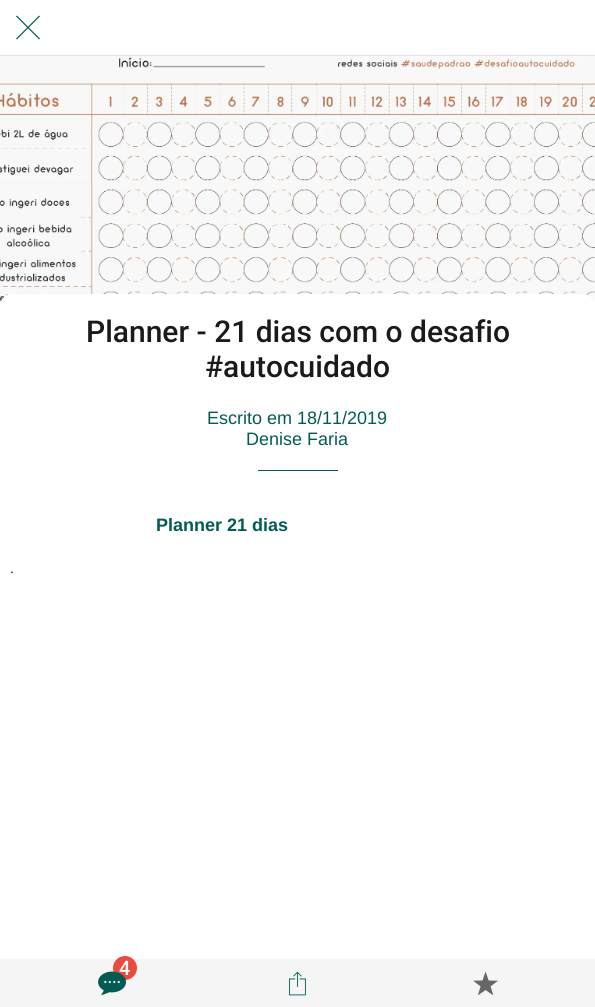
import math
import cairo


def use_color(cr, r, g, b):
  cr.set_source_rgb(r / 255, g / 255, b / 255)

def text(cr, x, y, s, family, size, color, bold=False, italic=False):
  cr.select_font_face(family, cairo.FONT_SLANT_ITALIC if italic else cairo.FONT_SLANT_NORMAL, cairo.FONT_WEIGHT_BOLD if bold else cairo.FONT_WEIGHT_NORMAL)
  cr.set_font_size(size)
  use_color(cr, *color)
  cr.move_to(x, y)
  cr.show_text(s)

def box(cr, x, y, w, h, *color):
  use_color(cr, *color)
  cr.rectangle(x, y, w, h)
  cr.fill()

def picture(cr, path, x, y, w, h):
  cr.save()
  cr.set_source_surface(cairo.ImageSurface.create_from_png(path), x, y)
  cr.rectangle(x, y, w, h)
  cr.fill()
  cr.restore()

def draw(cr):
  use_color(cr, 255, 255, 255)
  cr.paint()
  box(cr, 0, 55, 595, 1, 228, 228, 228)
  picture(cr, "img_01.png", 16, 15, 24, 25)
  picture(cr, "img_02.png", 0, 56, 595, 250)
  use_color(cr, 255, 255, 255)
  cr.new_path()
  cr.move_to(12, 294)
  cr.line_to(583, 294)
  cr.curve_to(589.5, 294, 595, 299.5, 595, 306)
  cr.line_to(595, 951)
  cr.line_to(0, 951)
  cr.line_to(0, 306)
  cr.curve_to(0, 299.5, 5.5, 294, 12, 294)
  cr.close_path()
  cr.fill()
  box(cr, 258, 470, 80, 1, 2, 92, 84)
  box(cr, 0, 959, 595, 48, 245, 245, 245)
  use_color(cr, 231, 76, 60)
  cr.arc(125, 968, 12, 0, 2 * math.pi)
  cr.fill()
  picture(cr, "img_04.png", 289, 971, 17, 25)
  picture(cr, "img_05.png", 473, 971, 25, 25)
  text(cr, 86, 342, "Planner - 21 dias com o desafio", "Roboto Medium", 30, (26, 26, 26))
  text(cr, 205, 377, "#autocuidado", "Roboto Medium", 30, (26, 26, 26))
  text(cr, 207, 424, "Escrito em 18/11/2019", "Liberation Sans", 18, (2, 92, 84))
  text(cr, 246, 445, "Denise Faria", "Liberation Sans", 18, (2, 92, 84))
  text(cr, 156, 531, "Planner 21 dias", "Liberation Sans", 18, (2, 92, 84), bold=True)
  text(cr, 10, 573, ".", "Roboto", 15, (33, 33, 33))
  text(cr, 119, 975, "4", "Roboto Medium", 20, (255, 255, 255))
  picture(cr, "img_03.png", 98, 971, 29, 25)


surface = cairo.ImageSurface(cairo.FORMAT_RGB24, 595, 1007)
cr = cairo.Context(surface)
options = cairo.FontOptions()
options.set_hint_metrics(cairo.HINT_METRICS_OFF)
options.set_hint_style(cairo.HINT_STYLE_NONE)
cr.set_font_options(options)
cr.set_miter_limit(4)
draw(cr)
surface.write_to_png("out.png")
